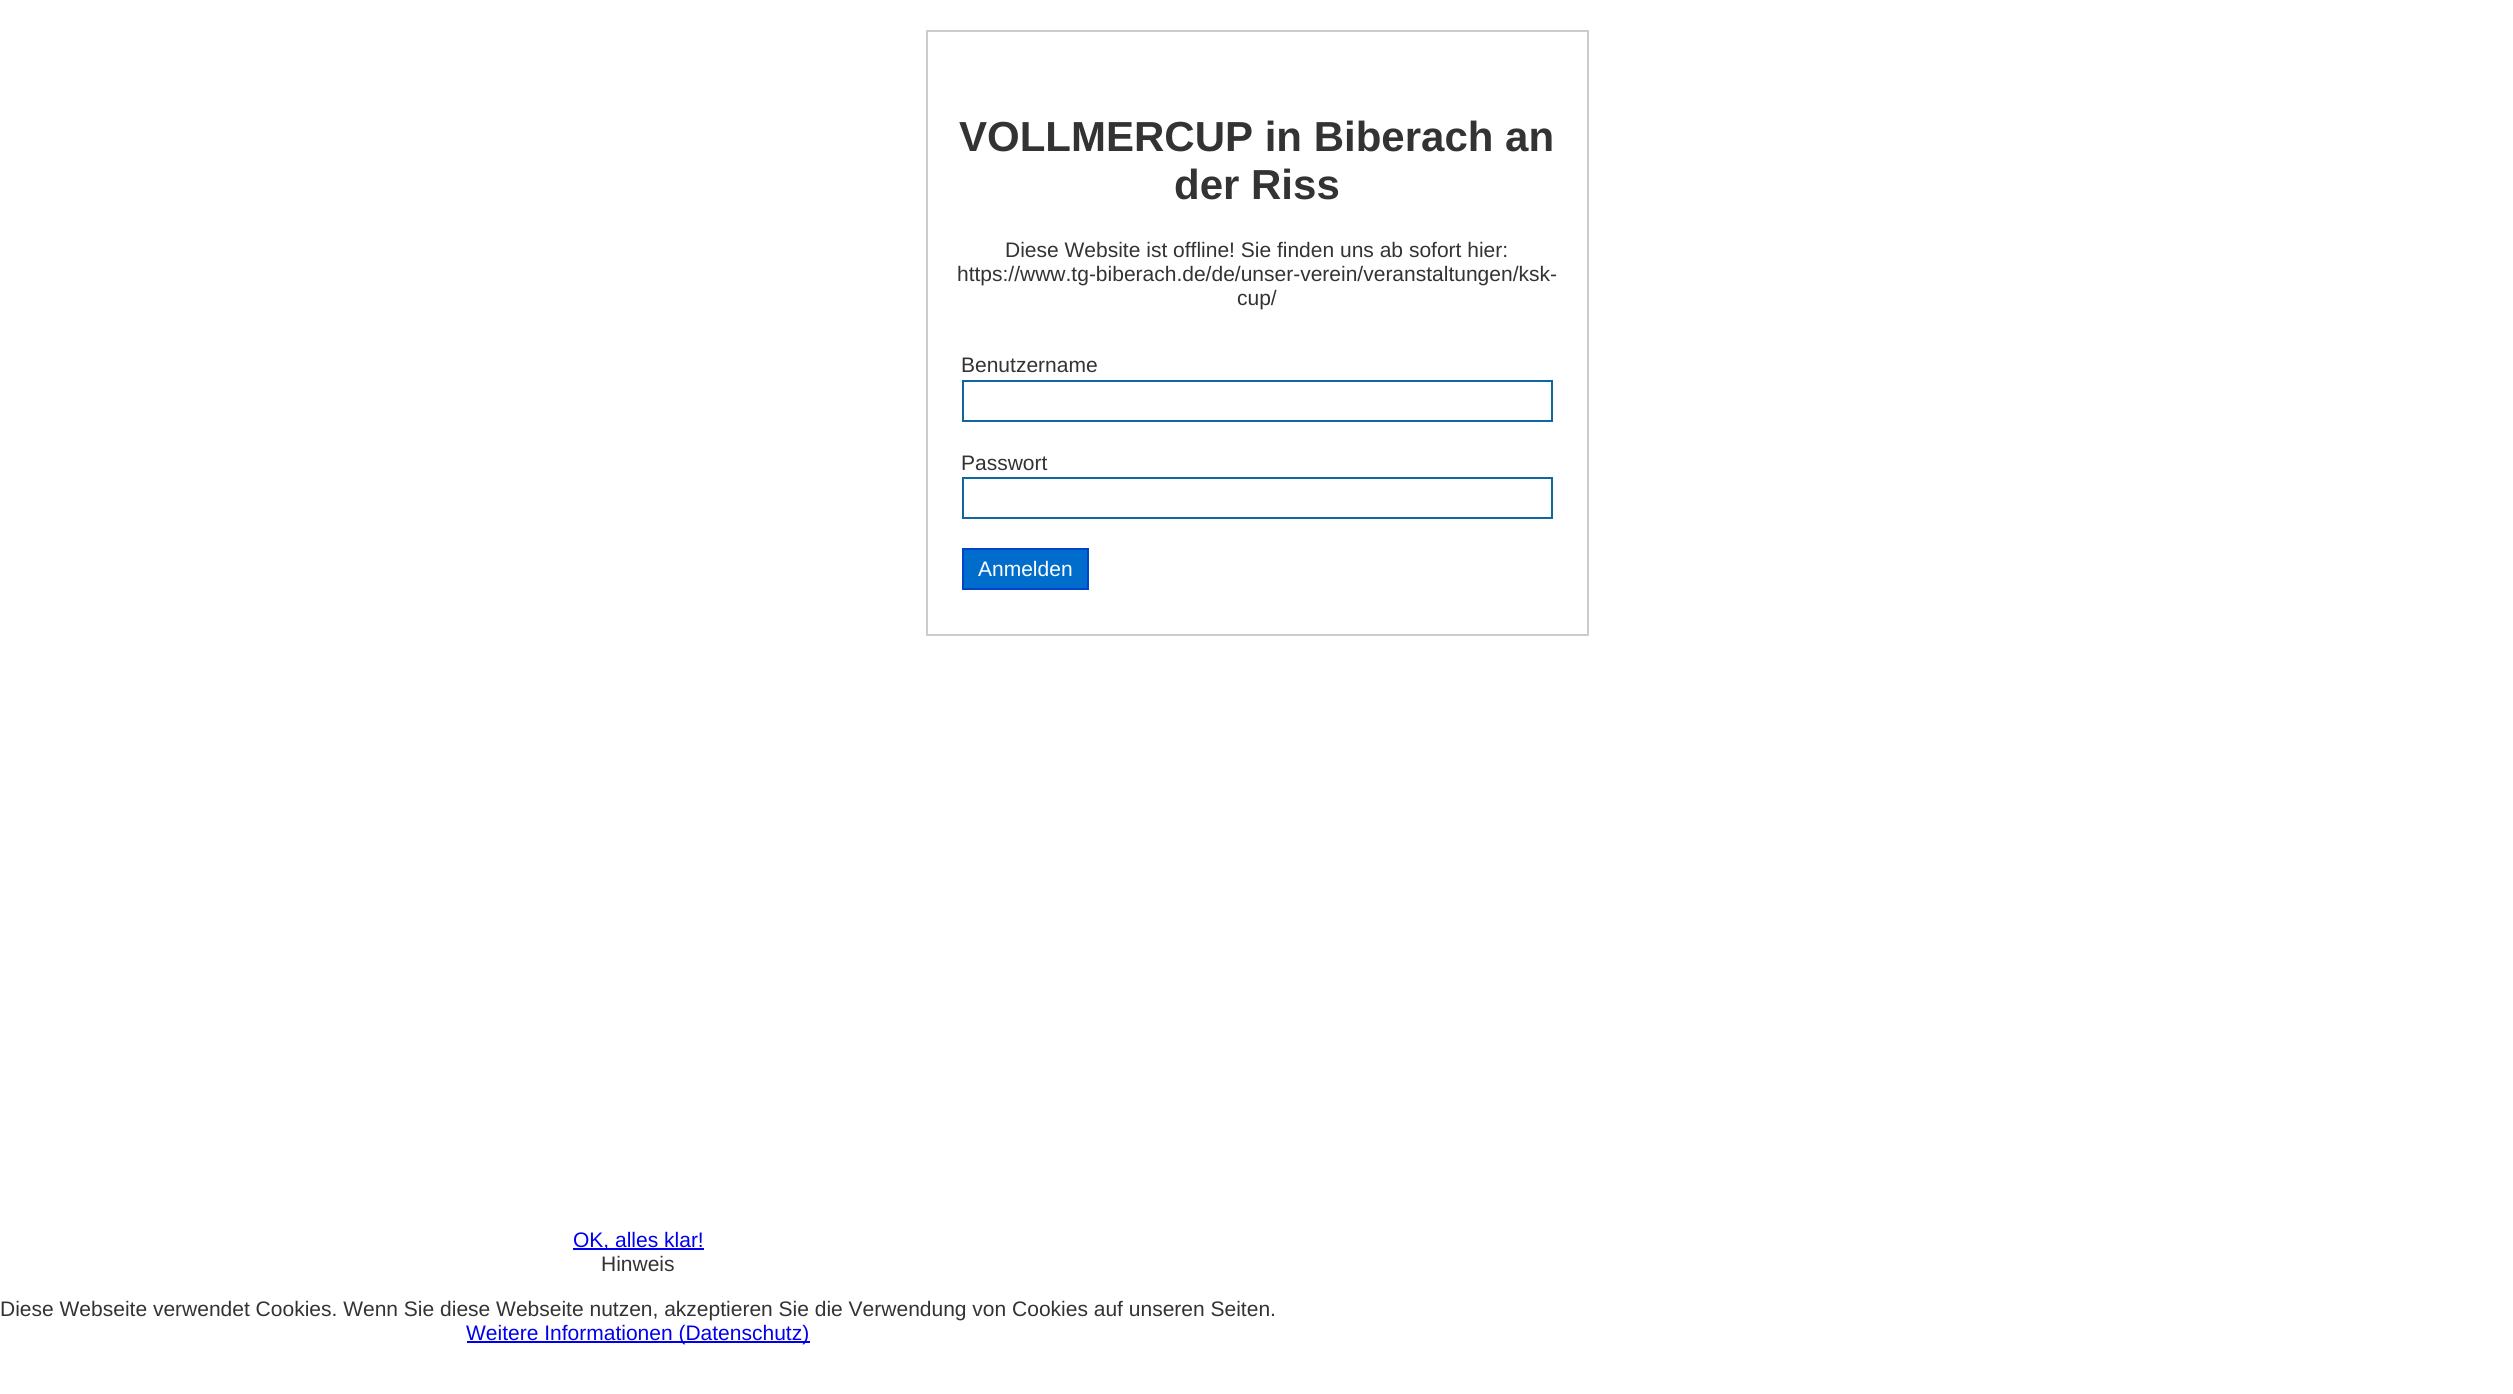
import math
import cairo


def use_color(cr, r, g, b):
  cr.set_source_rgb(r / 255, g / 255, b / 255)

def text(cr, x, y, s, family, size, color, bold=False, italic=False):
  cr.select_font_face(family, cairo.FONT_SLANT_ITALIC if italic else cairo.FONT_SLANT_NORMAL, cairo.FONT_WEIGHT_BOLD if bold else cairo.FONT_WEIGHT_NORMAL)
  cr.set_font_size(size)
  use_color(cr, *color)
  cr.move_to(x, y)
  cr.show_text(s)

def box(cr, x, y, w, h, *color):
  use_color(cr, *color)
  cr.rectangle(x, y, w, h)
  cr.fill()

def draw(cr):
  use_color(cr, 255, 255, 255)
  cr.paint()
  cr.rectangle(927, 31, 661, 604)
  use_color(cr, 204, 204, 204)
  cr.stroke()
  cr.rectangle(963, 381, 589, 40)
  use_color(cr, 14, 103, 161)
  cr.stroke()
  cr.rectangle(963, 478, 589, 40)
  cr.stroke()
  use_color(cr, 0, 109, 204)
  cr.rectangle(963, 549, 125, 40)
  cr.fill_preserve()
  use_color(cr, 0, 68, 204)
  cr.stroke()
  box(cr, 573, 1248, 131, 2, 0, 0, 238)
  box(cr, 467, 1341, 343, 2, 0, 0, 238)
  text(cr, 959, 151, "VOLLMERCUP in Biberach an", "Liberation Sans", 42, (51, 51, 51), bold=True)
  text(cr, 1174, 199, "der Riss", "Liberation Sans", 42, (51, 51, 51), bold=True)
  text(cr, 1005, 257, "Diese Website ist offline! Sie finden uns ab sofort hier:", "Liberation Sans", 21, (51, 51, 51))
  text(cr, 957, 281, "https://www.tg-biberach.de/de/unser-verein/veranstaltungen/ksk-", "Liberation Sans", 21, (51, 51, 51))
  text(cr, 1237, 305, "cup/", "Liberation Sans", 21, (51, 51, 51))
  text(cr, 961, 372, "Benutzername", "Liberation Sans", 21, (51, 51, 51))
  text(cr, 961, 470, "Passwort", "Liberation Sans", 21, (51, 51, 51))
  text(cr, 978, 576, "Anmelden", "Liberation Sans", 21, (255, 255, 255))
  text(cr, 573, 1247, "OK, alles klar!", "Liberation Sans", 21, (0, 0, 238))
  text(cr, 601, 1271, "Hinweis", "Liberation Sans", 21, (51, 51, 51))
  text(cr, 0, 1316, "Diese Webseite verwendet Cookies. Wenn Sie diese Webseite nutzen, akzeptieren Sie die Verwendung von Cookies auf unseren Seiten.", "Liberation Sans", 21, (51, 51, 51))
  text(cr, 466, 1340, "Weitere Informationen (Datenschutz)", "Liberation Sans", 21, (0, 0, 238))


surface = cairo.ImageSurface(cairo.FORMAT_RGB24, 2513, 1394)
cr = cairo.Context(surface)
options = cairo.FontOptions()
options.set_hint_metrics(cairo.HINT_METRICS_OFF)
options.set_hint_style(cairo.HINT_STYLE_NONE)
cr.set_font_options(options)
cr.set_miter_limit(4)
draw(cr)
surface.write_to_png("out.png")
